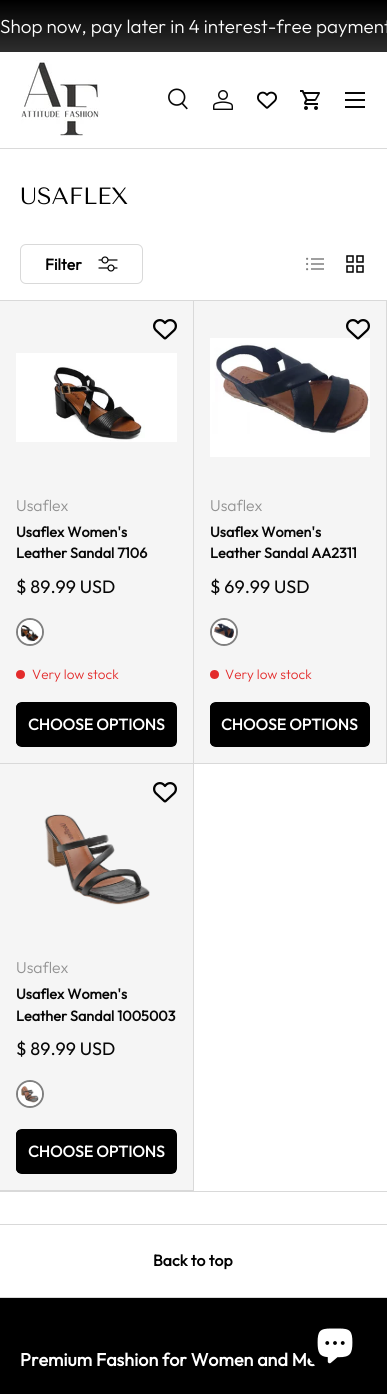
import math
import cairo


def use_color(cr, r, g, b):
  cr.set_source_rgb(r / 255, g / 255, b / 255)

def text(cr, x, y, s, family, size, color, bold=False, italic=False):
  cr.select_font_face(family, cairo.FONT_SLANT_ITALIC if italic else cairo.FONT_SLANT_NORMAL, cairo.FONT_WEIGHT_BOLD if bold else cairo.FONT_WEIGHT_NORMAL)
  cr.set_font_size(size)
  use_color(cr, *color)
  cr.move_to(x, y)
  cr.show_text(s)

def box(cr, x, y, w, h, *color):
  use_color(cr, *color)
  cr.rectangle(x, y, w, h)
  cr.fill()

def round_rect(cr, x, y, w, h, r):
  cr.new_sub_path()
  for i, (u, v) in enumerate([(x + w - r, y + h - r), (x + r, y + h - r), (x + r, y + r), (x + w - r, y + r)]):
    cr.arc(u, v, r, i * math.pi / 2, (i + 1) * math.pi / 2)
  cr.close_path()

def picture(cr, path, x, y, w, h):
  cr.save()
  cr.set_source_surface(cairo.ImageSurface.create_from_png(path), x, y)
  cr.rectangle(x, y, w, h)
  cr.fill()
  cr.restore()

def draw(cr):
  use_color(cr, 255, 255, 255)
  cr.paint()
  gradient = cairo.LinearGradient(194, 0, 194, 52)
  gradient.add_color_stop_rgba(0, 0, 0, 0, 1)
  gradient.add_color_stop_rgba(1, 0.18, 0.18, 0.18, 1)
  cr.set_source(gradient)
  cr.rectangle(0, 0, 387, 52)
  cr.fill()
  box(cr, 0, 148, 387, 1, 218, 218, 218)
  picture(cr, "img_01.png", 21, 60, 79, 76)
  picture(cr, "img_02.png", 168, 88, 20, 22)
  picture(cr, "img_03.png", 213, 90, 20, 20)
  picture(cr, "img_04.png", 257, 91, 20, 18)
  picture(cr, "img_05.png", 300, 90, 20, 20)
  box(cr, 345, 92, 20, 2, 7, 7, 7)
  box(cr, 345, 106, 20, 2, 7, 7, 7)
  box(cr, 345, 99, 20, 2, 7, 7, 7)
  round_rect(cr, 20.5, 244.5, 122, 39, 5.5)
  use_color(cr, 217, 217, 217)
  cr.set_line_width(1)
  cr.stroke()
  picture(cr, "img_06.png", 98, 256, 20, 16)
  picture(cr, "img_07.png", 306, 257, 18, 14)
  picture(cr, "img_08.png", 346, 255, 18, 18)
  box(cr, 0, 300, 387, 1, 217, 217, 217)
  box(cr, 0, 1191, 387, 1, 217, 217, 217)
  cr.new_path()
  cr.move_to(194, 301)
  cr.line_to(194, 764)
  cr.line_to(193, 763)
  cr.line_to(193, 301)
  cr.close_path()
  cr.fill()
  cr.set_source_rgba(0, 0, 0, 0.15)
  cr.new_path()
  cr.move_to(194, 764)
  cr.line_to(0, 764)
  cr.line_to(0, 763)
  cr.line_to(193, 763)
  cr.close_path()
  cr.fill()
  box(cr, 0, 301, 193, 462, 245, 245, 245)
  picture(cr, "img_09.png", 153, 319, 24, 21)
  picture(cr, "img_10.png", 16, 353, 161, 89)
  cr.arc(30, 632, 13, 0, 2 * math.pi)
  use_color(cr, 128, 128, 128)
  cr.set_line_width(2)
  cr.stroke()
  cr.arc(30, 632, 11, 0, 2 * math.pi)
  use_color(cr, 255, 255, 255)
  cr.stroke()
  cr.arc(30, 632, 10, 0, 2 * math.pi)
  cr.fill()
  picture(cr, "img_11.png", 20, 625, 19, 17)
  use_color(cr, 227, 43, 43)
  cr.arc(20.5, 674.5, 4.5, 0, 2 * math.pi)
  cr.fill()
  cr.save()
  round_rect(cr, 16, 702, 161, 45, 6)
  cr.clip()
  gradient = cairo.LinearGradient(-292, 667, 167, 782)
  gradient.add_color_stop_rgba(0.6, 0.18, 0.18, 0.18, 1)
  gradient.add_color_stop_rgba(0.6, 0, 0, 0, 1)
  gradient.add_color_stop_rgba(1, 0, 0, 0, 1)
  cr.set_source(gradient)
  cr.rectangle(16, 703, 160, 43)
  cr.fill()
  cr.restore()
  round_rect(cr, 16.5, 702.5, 160, 44, 5.5)
  use_color(cr, 0, 0, 0)
  cr.set_line_width(1)
  cr.stroke()
  use_color(cr, 217, 217, 217)
  cr.new_path()
  cr.move_to(387, 301)
  cr.line_to(387, 764)
  cr.line_to(386, 763)
  cr.line_to(386, 301)
  cr.close_path()
  cr.fill()
  cr.set_source_rgba(0, 0, 0, 0.15)
  cr.new_path()
  cr.move_to(387, 764)
  cr.line_to(194, 764)
  cr.line_to(194, 763)
  cr.line_to(386, 763)
  cr.close_path()
  cr.fill()
  box(cr, 194, 301, 192, 462, 245, 245, 245)
  picture(cr, "img_13.png", 210, 338, 160, 119)
  picture(cr, "img_12.png", 346, 319, 24, 21)
  cr.arc(224, 632, 13, 0, 2 * math.pi)
  use_color(cr, 128, 128, 128)
  cr.set_line_width(2)
  cr.stroke()
  cr.arc(224, 632, 11, 0, 2 * math.pi)
  use_color(cr, 255, 255, 255)
  cr.stroke()
  cr.arc(224, 632, 10, 0, 2 * math.pi)
  cr.fill()
  picture(cr, "img_14.png", 214, 623, 20, 16)
  use_color(cr, 227, 43, 43)
  cr.arc(214.5, 674.5, 4.5, 0, 2 * math.pi)
  cr.fill()
  cr.save()
  round_rect(cr, 210, 702, 160, 45, 6)
  cr.clip()
  gradient = cairo.LinearGradient(-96, 668, 360, 781)
  gradient.add_color_stop_rgba(0.6, 0.18, 0.18, 0.18, 1)
  gradient.add_color_stop_rgba(0.6, 0, 0, 0, 1)
  gradient.add_color_stop_rgba(1, 0, 0, 0, 1)
  cr.set_source(gradient)
  cr.rectangle(210, 703, 159, 43)
  cr.fill()
  cr.restore()
  round_rect(cr, 210.5, 702.5, 159, 44, 5.5)
  use_color(cr, 0, 0, 0)
  cr.set_line_width(1)
  cr.stroke()
  use_color(cr, 217, 217, 217)
  cr.new_path()
  cr.move_to(194, 764)
  cr.line_to(194, 1191)
  cr.line_to(193, 1190)
  cr.line_to(193, 764)
  cr.close_path()
  cr.fill()
  cr.set_source_rgba(0, 0, 0, 0.15)
  cr.new_path()
  cr.move_to(194, 1191)
  cr.line_to(0, 1191)
  cr.line_to(0, 1190)
  cr.line_to(193, 1190)
  cr.close_path()
  cr.fill()
  box(cr, 0, 764, 193, 426, 245, 245, 245)
  picture(cr, "img_09.png", 153, 782, 24, 21)
  picture(cr, "img_15.png", 44, 814, 106, 91)
  cr.arc(30, 1094, 13, 0, 2 * math.pi)
  use_color(cr, 128, 128, 128)
  cr.set_line_width(2)
  cr.stroke()
  cr.arc(30, 1094, 11, 0, 2 * math.pi)
  use_color(cr, 255, 255, 255)
  cr.stroke()
  cr.arc(30, 1094, 10, 0, 2 * math.pi)
  cr.fill()
  picture(cr, "img_16.png", 21, 1086, 18, 17)
  cr.save()
  round_rect(cr, 16, 1129, 161, 45, 6)
  cr.clip()
  gradient = cairo.LinearGradient(-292, 1094, 167, 1209)
  gradient.add_color_stop_rgba(0.6, 0.18, 0.18, 0.18, 1)
  gradient.add_color_stop_rgba(0.6, 0, 0, 0, 1)
  gradient.add_color_stop_rgba(1, 0, 0, 0, 1)
  cr.set_source(gradient)
  cr.rectangle(16, 1130, 160, 43)
  cr.fill()
  cr.restore()
  round_rect(cr, 16.5, 1129.5, 160, 44, 5.5)
  use_color(cr, 0, 0, 0)
  cr.set_line_width(1)
  cr.stroke()
  box(cr, 0, 1224, 387, 1, 217, 217, 217)
  box(cr, 0, 1297, 387, 1, 217, 217, 217)
  box(cr, 0, 1298, 387, 96, 0, 0, 0)
  text(cr, 0, 33, "Shop now, pay later in 4 interest-free payment", "Outfit Light", 18.85, (255, 255, 255))
  text(cr, 20, 204, "USAFLEX", "Tenor Sans", 23.5, (0, 0, 0))
  text(cr, 45, 270, "Filter", "Outfit", 15.75, (0, 0, 0), bold=True)
  text(cr, 16, 511, "Usaflex", "Outfit Light", 15.75, (145, 145, 145))
  text(cr, 16, 537, "Usaflex Women's", "Outfit", 14.4, (7, 7, 7), bold=True)
  text(cr, 16, 558, "Leather Sandal 7106", "Outfit", 14.4, (7, 7, 7), bold=True)
  text(cr, 16, 593, "$ 89.99 USD", "Outfit", 18, (7, 7, 7))
  text(cr, 32, 679, "Very low stock", "Outfit Light", 13.5, (227, 43, 43))
  text(cr, 28, 730, "CHOOSE OPTIONS", "Outfit", 15.75, (255, 255, 255), bold=True)
  text(cr, 210, 511, "Usaflex", "Outfit Light", 15.75, (145, 145, 145))
  text(cr, 210, 537, "Usaflex Women's", "Outfit", 14.4, (7, 7, 7), bold=True)
  text(cr, 210, 558, "Leather Sandal AA2311", "Outfit", 14.4, (7, 7, 7), bold=True)
  text(cr, 210, 593, "$ 69.99 USD", "Outfit", 18, (7, 7, 7))
  text(cr, 225, 679, "Very low stock", "Outfit Light", 13.5, (227, 43, 43))
  text(cr, 221, 730, "CHOOSE OPTIONS", "Outfit", 15.75, (255, 255, 255), bold=True)
  text(cr, 16, 973, "Usaflex", "Outfit Light", 15.75, (145, 145, 145))
  text(cr, 16, 999, "Usaflex Women's", "Outfit", 14.4, (7, 7, 7), bold=True)
  text(cr, 16, 1021, "Leather Sandal 1005003", "Outfit", 14.4, (7, 7, 7), bold=True)
  text(cr, 16, 1055, "$ 89.99 USD", "Outfit", 18, (7, 7, 7))
  text(cr, 28, 1157, "CHOOSE OPTIONS", "Outfit", 15.75, (255, 255, 255), bold=True)
  text(cr, 153, 1266, "Back to top", "Outfit", 15.75, (0, 0, 0), bold=True)
  text(cr, 20, 1366, "Premium Fashion for Women and Me", "Outfit", 18, (255, 255, 255), bold=True)
  use_color(cr, 0, 0, 0)
  cr.new_path()
  cr.arc(335, 1343, 30, 0, 2 * math.pi)
  cr.fill()
  picture(cr, "img_17.png", 317, 1328, 36, 36)


surface = cairo.ImageSurface(cairo.FORMAT_RGB24, 387, 1394)
cr = cairo.Context(surface)
options = cairo.FontOptions()
options.set_hint_metrics(cairo.HINT_METRICS_OFF)
options.set_hint_style(cairo.HINT_STYLE_NONE)
cr.set_font_options(options)
cr.set_miter_limit(4)
draw(cr)
surface.write_to_png("out.png")
